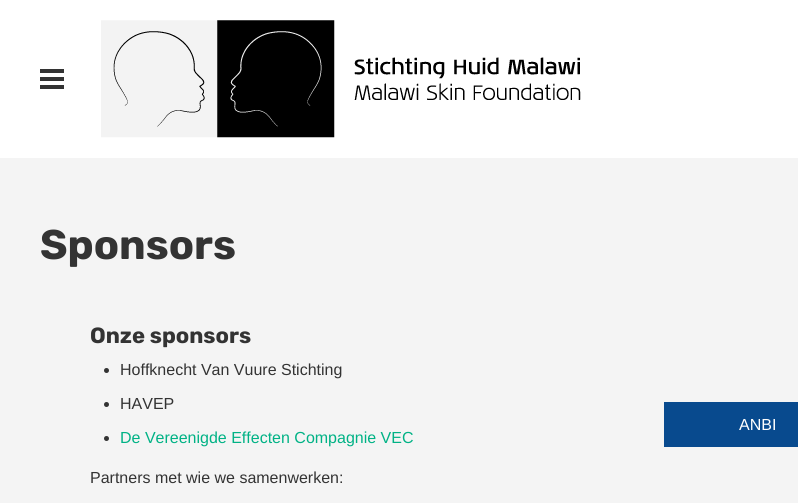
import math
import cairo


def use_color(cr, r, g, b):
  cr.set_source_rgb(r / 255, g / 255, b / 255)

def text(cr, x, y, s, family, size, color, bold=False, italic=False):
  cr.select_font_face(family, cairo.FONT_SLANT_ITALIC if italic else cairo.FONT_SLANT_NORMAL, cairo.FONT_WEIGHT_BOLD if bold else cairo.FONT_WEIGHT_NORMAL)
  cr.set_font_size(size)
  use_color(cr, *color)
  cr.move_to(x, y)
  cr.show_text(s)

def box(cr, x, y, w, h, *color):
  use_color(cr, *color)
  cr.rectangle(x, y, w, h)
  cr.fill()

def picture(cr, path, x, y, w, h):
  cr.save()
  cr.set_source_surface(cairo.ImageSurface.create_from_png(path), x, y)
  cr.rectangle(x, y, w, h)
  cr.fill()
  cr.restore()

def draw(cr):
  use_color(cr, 255, 255, 255)
  cr.paint()
  box(cr, 40, 69, 24, 4, 51, 51, 51)
  box(cr, 40, 77, 24, 4, 51, 51, 51)
  box(cr, 40, 85, 24, 4, 51, 51, 51)
  picture(cr, "img_01.png", 101, 20, 480, 118)
  box(cr, 0, 158, 798, 345, 244, 244, 244)
  use_color(cr, 51, 51, 51)
  cr.arc(106.5, 370.5, 2.5, 0, 2 * math.pi)
  cr.fill()
  cr.arc(106.5, 404.5, 2.5, 0, 2 * math.pi)
  cr.fill()
  cr.arc(106.5, 438.5, 2.5, 0, 2 * math.pi)
  cr.fill()
  box(cr, 664, 402, 134, 45, 8, 74, 142)
  text(cr, 40, 259, "Sponsors", "Rubik", 41.5, (51, 51, 51), bold=True)
  text(cr, 90, 343, "Onze sponsors", "Rubik", 22, (51, 51, 51), bold=True)
  text(cr, 120, 375, "Hoffknecht Van Vuure Stichting", "Liberation Sans", 16, (51, 51, 51))
  text(cr, 120, 409, "HAVEP", "Liberation Sans", 16, (51, 51, 51))
  text(cr, 120, 443, "De Vereenigde Effecten Compagnie VEC", "Liberation Sans", 16, (0, 178, 133))
  text(cr, 90, 483, "Partners met wie we samenwerken:", "Liberation Sans", 16, (51, 51, 51))
  text(cr, 739, 430, "ANBI", "Liberation Sans", 16, (255, 255, 255))


surface = cairo.ImageSurface(cairo.FORMAT_RGB24, 798, 503)
cr = cairo.Context(surface)
options = cairo.FontOptions()
options.set_hint_metrics(cairo.HINT_METRICS_OFF)
options.set_hint_style(cairo.HINT_STYLE_NONE)
cr.set_font_options(options)
cr.set_miter_limit(4)
draw(cr)
surface.write_to_png("out.png")
